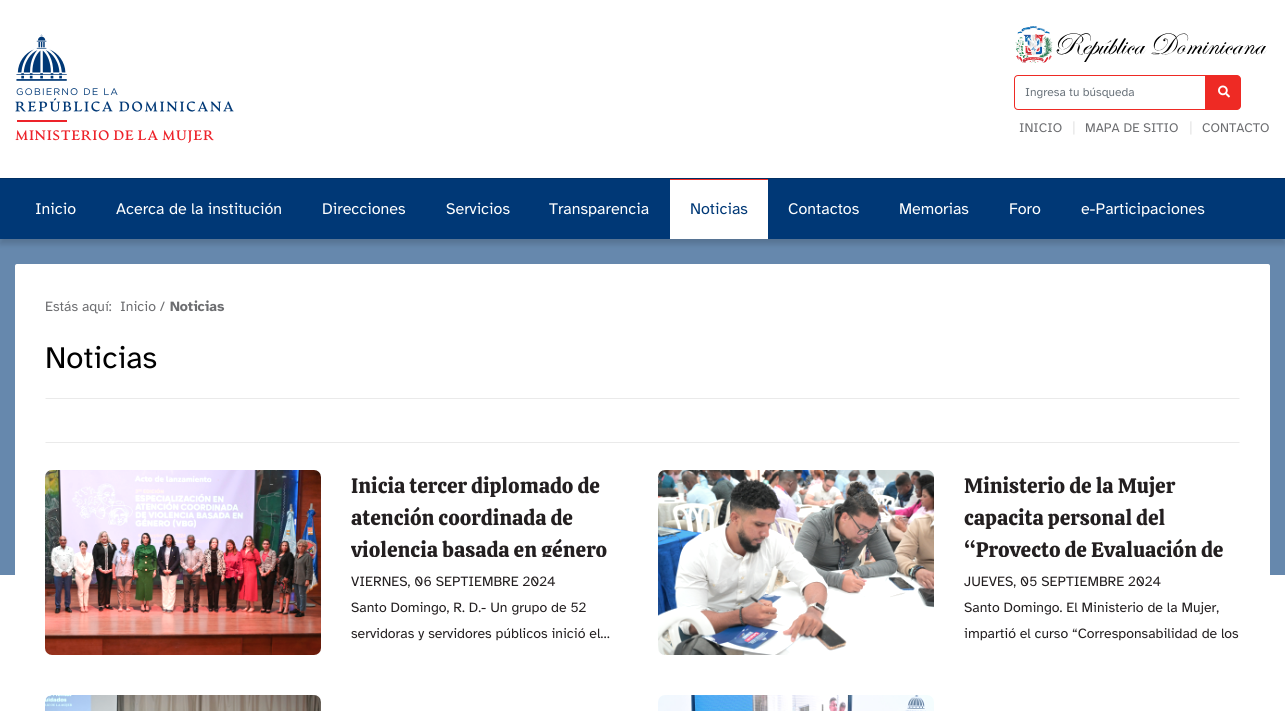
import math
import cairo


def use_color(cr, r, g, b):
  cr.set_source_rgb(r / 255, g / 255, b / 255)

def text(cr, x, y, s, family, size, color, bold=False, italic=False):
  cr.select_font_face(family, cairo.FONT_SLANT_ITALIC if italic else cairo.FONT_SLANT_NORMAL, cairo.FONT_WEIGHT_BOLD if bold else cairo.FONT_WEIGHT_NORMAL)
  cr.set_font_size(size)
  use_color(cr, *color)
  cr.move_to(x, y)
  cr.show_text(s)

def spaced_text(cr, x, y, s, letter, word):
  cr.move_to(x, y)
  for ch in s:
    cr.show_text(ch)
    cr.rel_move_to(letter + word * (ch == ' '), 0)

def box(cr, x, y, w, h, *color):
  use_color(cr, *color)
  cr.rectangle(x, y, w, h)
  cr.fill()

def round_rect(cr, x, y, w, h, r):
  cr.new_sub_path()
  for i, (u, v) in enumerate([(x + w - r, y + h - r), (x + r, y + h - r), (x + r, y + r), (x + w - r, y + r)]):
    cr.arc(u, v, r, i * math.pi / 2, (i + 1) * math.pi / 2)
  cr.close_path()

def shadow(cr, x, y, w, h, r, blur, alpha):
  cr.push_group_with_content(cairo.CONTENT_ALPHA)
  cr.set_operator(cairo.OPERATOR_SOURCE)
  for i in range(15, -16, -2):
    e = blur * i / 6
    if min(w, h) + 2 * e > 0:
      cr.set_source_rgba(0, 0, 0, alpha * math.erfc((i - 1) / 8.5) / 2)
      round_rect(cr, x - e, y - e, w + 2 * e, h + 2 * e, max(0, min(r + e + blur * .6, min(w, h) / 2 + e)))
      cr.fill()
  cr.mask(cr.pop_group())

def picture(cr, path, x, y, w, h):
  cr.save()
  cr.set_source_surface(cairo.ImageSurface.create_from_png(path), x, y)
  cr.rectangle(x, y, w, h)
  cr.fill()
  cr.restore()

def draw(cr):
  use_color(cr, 255, 255, 255)
  cr.paint()
  picture(cr, "img_01.png", 1015, 26, 252, 37)
  cr.new_path()
  cr.move_to(1018, 75.5)
  cr.line_to(1205.5, 75.5)
  cr.line_to(1205.5, 109.5)
  cr.line_to(1018, 109.5)
  cr.curve_to(1016, 109.5, 1014.5, 108, 1014.5, 106)
  cr.line_to(1014.5, 79)
  cr.curve_to(1014.5, 77, 1016, 75.5, 1018, 75.5)
  cr.close_path()
  use_color(cr, 238, 42, 36)
  cr.set_line_width(1)
  cr.stroke()
  cr.new_path()
  cr.move_to(1206, 75)
  cr.line_to(1237, 75)
  cr.curve_to(1239, 75, 1241, 77, 1241, 79)
  cr.line_to(1241, 106)
  cr.curve_to(1241, 108, 1239, 110, 1237, 110)
  cr.line_to(1206, 110)
  cr.close_path()
  cr.fill()
  picture(cr, "img_02.png", 1218, 85, 12, 13)
  picture(cr, "img_03.png", 15, 34, 219, 88)
  box(cr, 0, 239, 1285, 336, 102, 136, 173)
  use_color(cr, 0, 0, 0)
  shadow(cr, 0, 183, 1285, 61, 0, 3, 0.16)
  box(cr, 0, 179, 1285, 60, 0, 56, 118)
  box(cr, 0, 178, 1285, 1, 0, 47, 99)
  box(cr, 670, 180, 98, 59, 255, 255, 255)
  box(cr, 670, 179, 98, 1, 238, 42, 36)
  use_color(cr, 255, 255, 255)
  round_rect(cr, 15, 264, 1255, 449, 2)
  cr.fill()
  use_color(cr, 234, 234, 234)
  cr.new_path()
  cr.move_to(45, 398)
  cr.line_to(1240, 398)
  cr.line_to(1239, 399)
  cr.line_to(46, 399)
  cr.close_path()
  cr.fill()
  cr.new_path()
  cr.move_to(1240, 443)
  cr.line_to(45, 443)
  cr.line_to(46, 442)
  cr.line_to(1239, 442)
  cr.close_path()
  cr.fill()
  picture(cr, "img_04.png", 45, 470, 276, 185)
  picture(cr, "img_05.png", 658, 470, 276, 185)
  picture(cr, "img_06.png", 45, 695, 276, 16)
  picture(cr, "img_07.png", 658, 695, 276, 16)
  text(cr, 1025, 96, "Ingresa tu búsqueda", "Atkinson Hyperlegible", 12, (108, 117, 125))
  text(cr, 1019, 132, "INICIO", "Atkinson Hyperlegible", 13, (109, 110, 113))
  text(cr, 1072, 132, "|", "Atkinson Hyperlegible", 16, (230, 230, 230))
  text(cr, 1085, 132, "MAPA DE SITIO", "Atkinson Hyperlegible", 13, (109, 110, 113))
  text(cr, 1189, 132, "|", "Atkinson Hyperlegible", 16, (230, 230, 230))
  text(cr, 1202, 132, "CONTACTO", "Atkinson Hyperlegible", 13, (109, 110, 113))
  cr.select_font_face("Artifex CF", cairo.FONT_SLANT_NORMAL, cairo.FONT_WEIGHT_BOLD)
  cr.set_font_size(13.7)
  use_color(cr, 237, 35, 42)
  spaced_text(cr, 15, 140, "MINISTERIO DE LA MUJER", 0.55, 0)
  text(cr, 35, 214, "Inicio", "Atkinson Hyperlegible", 16, (255, 255, 255))
  text(cr, 116, 214, "Acerca de la institución", "Atkinson Hyperlegible", 16, (255, 255, 255))
  text(cr, 322, 214, "Direcciones", "Atkinson Hyperlegible", 16, (255, 255, 255))
  text(cr, 446, 214, "Servicios", "Atkinson Hyperlegible", 16, (255, 255, 255))
  text(cr, 549, 214, "Transparencia", "Atkinson Hyperlegible", 16, (255, 255, 255))
  text(cr, 690, 214, "Noticias", "Atkinson Hyperlegible", 16, (0, 56, 118))
  text(cr, 788, 214, "Contactos", "Atkinson Hyperlegible", 16, (255, 255, 255))
  text(cr, 899, 214, "Memorias", "Atkinson Hyperlegible", 16, (255, 255, 255))
  text(cr, 1009, 214, "Foro", "Atkinson Hyperlegible", 16, (255, 255, 255))
  text(cr, 1081, 214, "e-Participaciones", "Atkinson Hyperlegible", 16, (255, 255, 255))
  text(cr, 45, 311, "Estás aquí:", "Atkinson Hyperlegible", 14, (109, 110, 113))
  text(cr, 120, 311, "Inicio /", "Atkinson Hyperlegible", 14, (109, 110, 113))
  text(cr, 170, 311, "Noticias", "Atkinson Hyperlegible", 14, (109, 110, 113), bold=True)
  text(cr, 45, 368, "Noticias", "Atkinson Hyperlegible", 31, (0, 0, 0))
  text(cr, 351, 493, "Inicia tercer diplomado de", "Calistoga", 21, (35, 31, 32))
  text(cr, 351, 525, "atención coordinada de", "Calistoga", 21, (35, 31, 32))
  cr.save()
  cr.rectangle(351, 470, 277, 87)
  cr.clip()
  text(cr, 351, 557, "violencia basada en género", "Calistoga", 21, (35, 31, 32))
  cr.restore()
  text(cr, 351, 586, "VIERNES, 06 SEPTIEMBRE 2024", "Atkinson Hyperlegible", 14, (35, 31, 32))
  text(cr, 351, 612, "Santo Domingo, R. D.- Un grupo de 52", "Atkinson Hyperlegible", 14, (35, 31, 32))
  text(cr, 351, 638, "servidoras y servidores públicos inició el…", "Atkinson Hyperlegible", 14, (35, 31, 32))
  text(cr, 964, 493, "Ministerio de la Mujer", "Calistoga", 21, (35, 31, 32))
  text(cr, 964, 525, "capacita personal del", "Calistoga", 21, (35, 31, 32))
  cr.save()
  cr.rectangle(964, 470, 276, 87)
  cr.clip()
  text(cr, 964, 557, "“Proyecto de Evaluación de", "Calistoga", 21, (35, 31, 32))
  cr.restore()
  text(cr, 964, 586, "JUEVES, 05 SEPTIEMBRE 2024", "Atkinson Hyperlegible", 14, (35, 31, 32))
  text(cr, 964, 612, "Santo Domingo. El Ministerio de la Mujer,", "Atkinson Hyperlegible", 14, (35, 31, 32))
  text(cr, 964, 638, "impartió el curso “Corresponsabilidad de los", "Atkinson Hyperlegible", 14, (35, 31, 32))


surface = cairo.ImageSurface(cairo.FORMAT_RGB24, 1285, 711)
cr = cairo.Context(surface)
options = cairo.FontOptions()
options.set_hint_metrics(cairo.HINT_METRICS_OFF)
options.set_hint_style(cairo.HINT_STYLE_NONE)
cr.set_font_options(options)
cr.set_miter_limit(4)
draw(cr)
surface.write_to_png("out.png")
